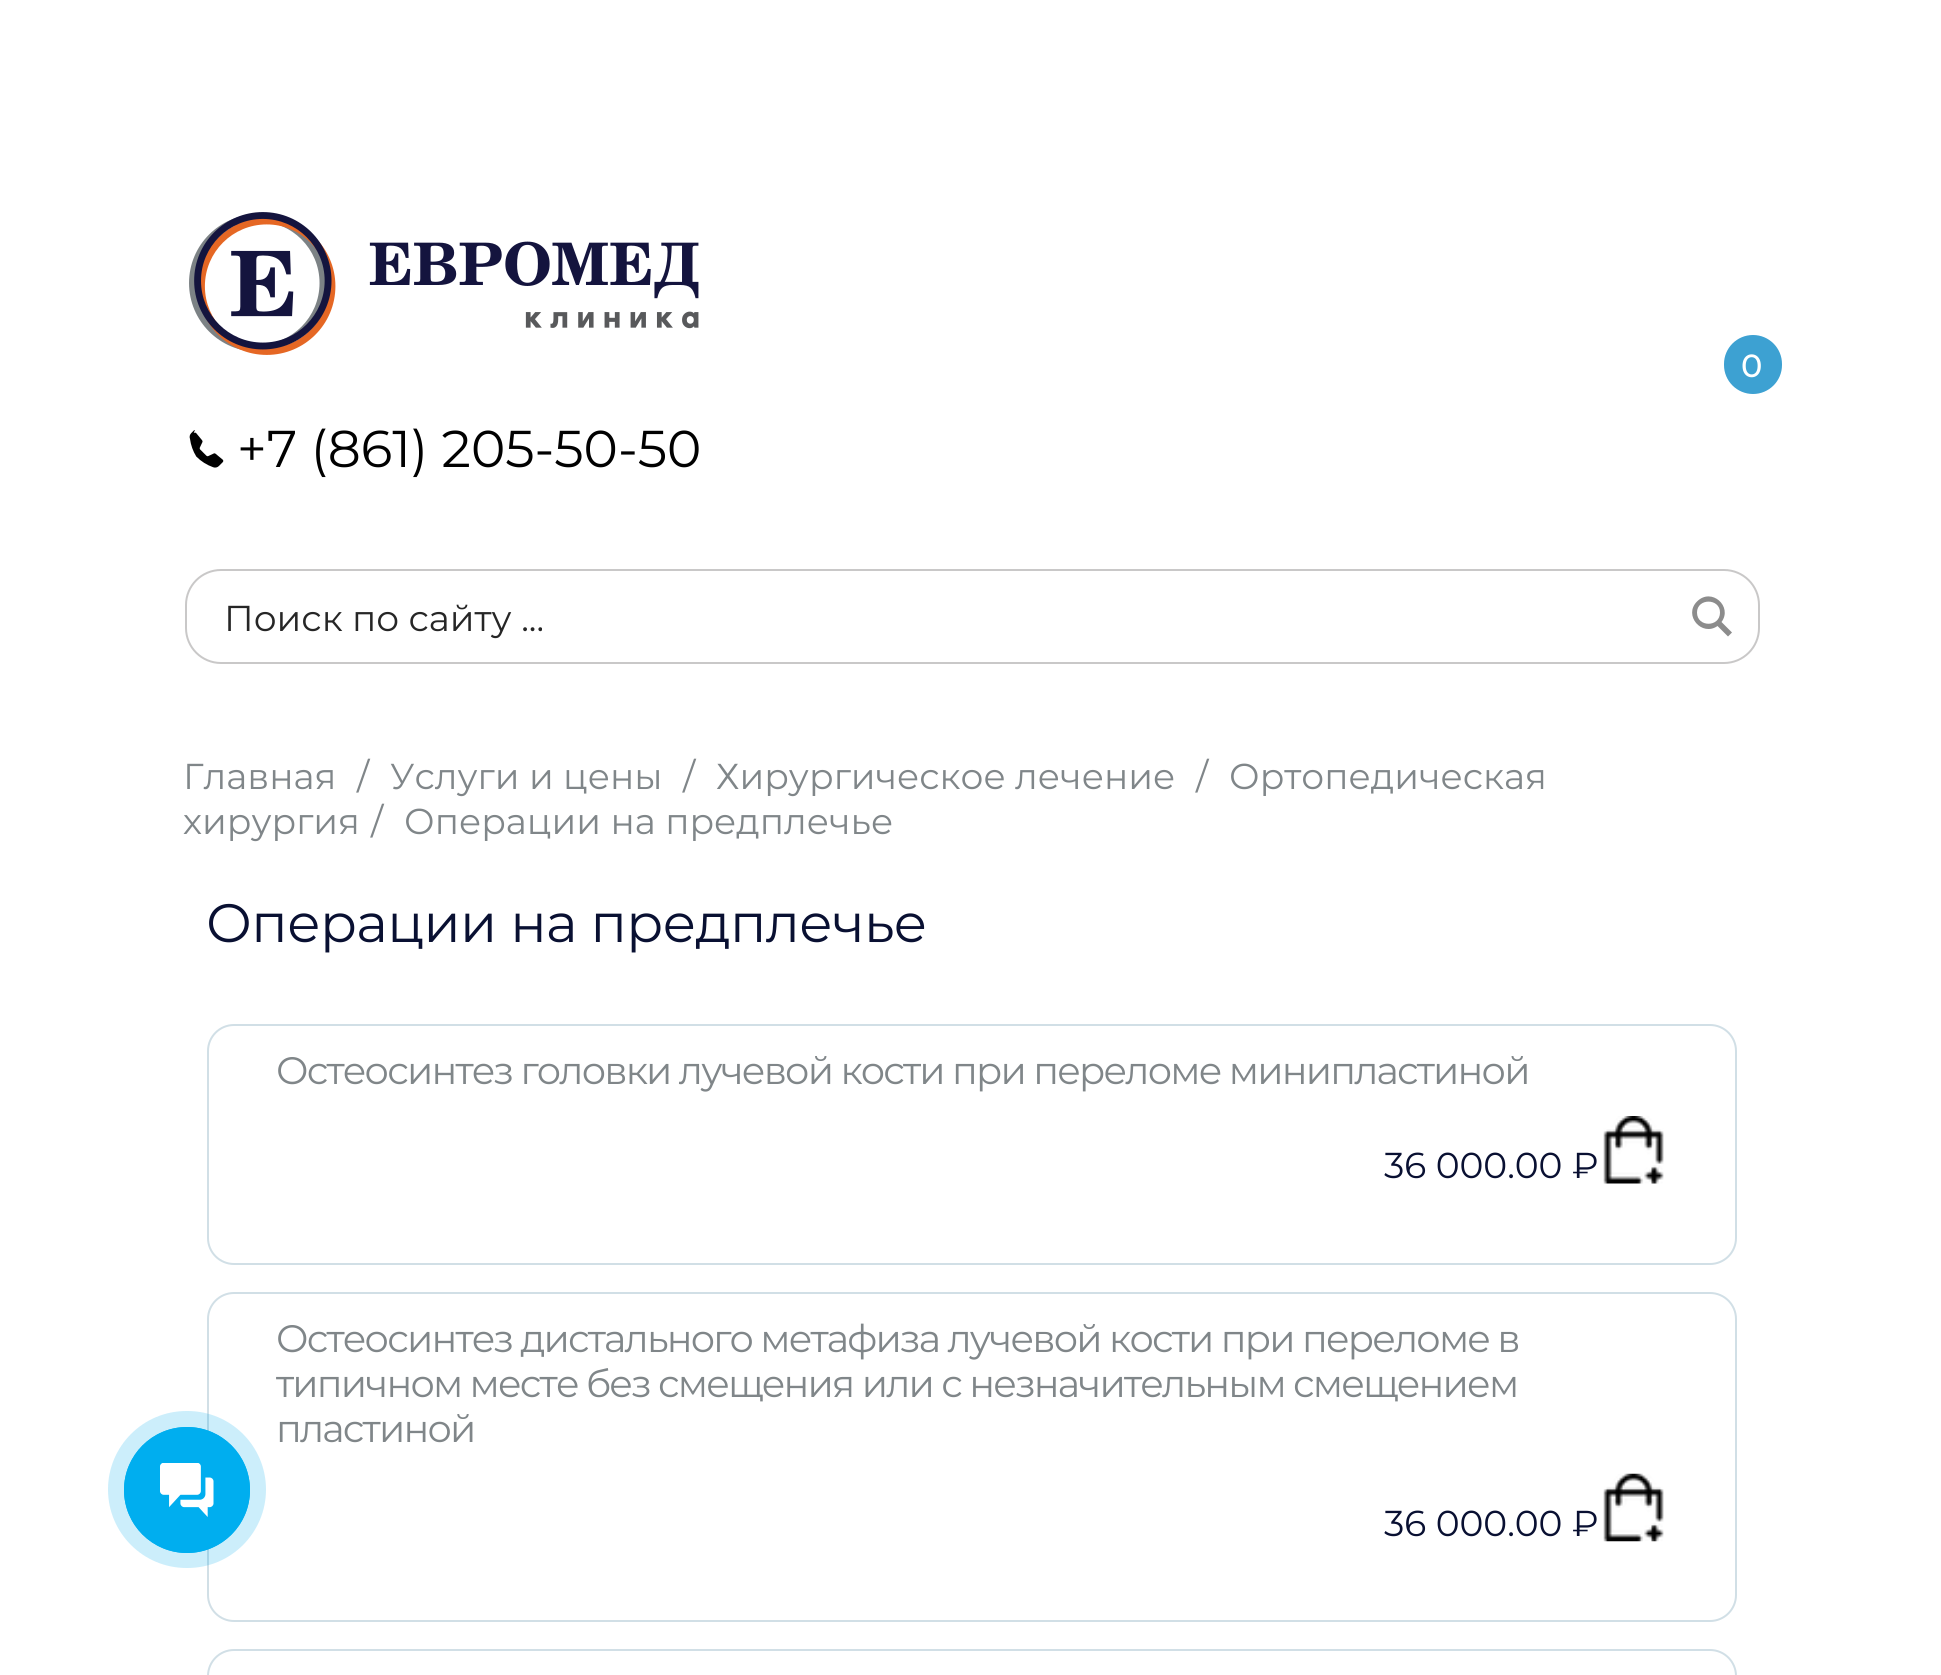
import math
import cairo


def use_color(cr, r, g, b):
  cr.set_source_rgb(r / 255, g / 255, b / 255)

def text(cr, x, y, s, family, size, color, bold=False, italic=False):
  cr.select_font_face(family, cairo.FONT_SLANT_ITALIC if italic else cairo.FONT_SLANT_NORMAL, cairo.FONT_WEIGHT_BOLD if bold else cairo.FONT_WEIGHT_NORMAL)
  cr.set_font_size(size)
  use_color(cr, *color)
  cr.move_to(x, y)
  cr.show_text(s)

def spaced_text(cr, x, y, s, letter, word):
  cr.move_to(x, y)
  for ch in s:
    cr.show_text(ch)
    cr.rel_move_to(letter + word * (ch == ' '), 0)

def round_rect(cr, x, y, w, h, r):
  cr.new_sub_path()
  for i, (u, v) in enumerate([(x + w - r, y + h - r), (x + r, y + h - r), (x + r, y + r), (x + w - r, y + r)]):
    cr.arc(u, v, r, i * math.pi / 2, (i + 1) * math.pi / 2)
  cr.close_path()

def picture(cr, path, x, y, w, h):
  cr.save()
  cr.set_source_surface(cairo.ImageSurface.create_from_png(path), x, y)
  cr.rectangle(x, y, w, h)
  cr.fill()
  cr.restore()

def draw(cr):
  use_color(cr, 255, 255, 255)
  cr.paint()
  use_color(cr, 61, 161, 210)
  round_rect(cr, 1724, 335, 58, 59, 29)
  cr.fill()
  picture(cr, "img_01.png", 189, 212, 510, 143)
  picture(cr, "img_02.png", 189, 430, 35, 38)
  round_rect(cr, 186, 570, 1573, 93, 35)
  use_color(cr, 201, 200, 200)
  cr.stroke()
  use_color(cr, 140, 140, 140)
  cr.new_path()
  cr.move_to(1732, 632.5)
  cr.line_to(1721.5, 622)
  cr.curve_to(1733, 606.5, 1711.5, 587, 1697, 601.5)
  cr.curve_to(1683, 615.5, 1702, 637, 1717.5, 626)
  cr.line_to(1728, 636.5)
  cr.close_path()
  cr.move_to(1697, 612.5)
  cr.curve_to(1697, 598, 1720, 598, 1720, 612.5)
  cr.curve_to(1720, 627.5, 1697, 627.5, 1697, 612.5)
  cr.close_path()
  cr.fill()
  round_rect(cr, 208, 1025, 1528, 239, 26)
  use_color(cr, 209, 223, 230)
  cr.stroke()
  picture(cr, "img_03.png", 1603, 1116, 61, 68)
  round_rect(cr, 208, 1293, 1528, 328, 26)
  cr.stroke()
  picture(cr, "img_04.png", 1603, 1473, 61, 69)
  round_rect(cr, 208, 1650, 1528, 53, 26)
  cr.stroke()
  cr.set_source_rgba(0, 0.682, 0.937, 0.2)
  round_rect(cr, 108, 1411, 158, 157, 78.5)
  cr.fill()
  cr.arc(187, 1490, 62, 0, 2 * math.pi)
  use_color(cr, 0, 174, 239)
  cr.stroke()
  cr.arc(187, 1490, 63, 0, 2 * math.pi)
  cr.fill()
  picture(cr, "img_05.png", 160, 1463, 54, 54)
  text(cr, 1741, 377, "0", "Montserrat Medium", 32, (255, 255, 255))
  text(cr, 237, 467, "+7 (861) 205-50-50", "Montserrat", 51.75, (0, 0, 0))
  text(cr, 224, 631, "Поиск по сайту ...", "Montserrat", 36, (38, 38, 38))
  text(cr, 183, 789, "Главная", "Montserrat", 36, (128, 134, 137))
  text(cr, 357, 789, "/", "Montserrat", 36, (128, 134, 137))
  text(cr, 390, 789, "Услуги и цены", "Montserrat", 36, (128, 134, 137))
  text(cr, 683, 789, "/", "Montserrat", 36, (128, 134, 137))
  text(cr, 716, 789, "Хирургическое лечение", "Montserrat", 36, (128, 134, 137))
  text(cr, 1196, 789, "/", "Montserrat", 36, (128, 134, 137))
  text(cr, 1229, 789, "Ортопедическая", "Montserrat", 36, (128, 134, 137))
  text(cr, 183, 834, "хирургия", "Montserrat", 36, (128, 134, 137))
  text(cr, 371, 834, "/", "Montserrat", 36, (128, 134, 137))
  text(cr, 404, 834, "Операции на предплечье", "Montserrat", 36, (128, 134, 137))
  cr.set_font_size(54)
  use_color(cr, 9, 16, 50)
  spaced_text(cr, 206, 942, "Операции на предплечье", -0.6, 0)
  cr.set_font_size(38.25)
  use_color(cr, 128, 134, 137)
  spaced_text(cr, 276, 1084, "Остеосинтез головки лучевой кости при переломе минипластиной", -1.8, 0)
  text(cr, 1384, 1178, "36 000.00 ₽", "Montserrat", 36, (9, 16, 50))
  cr.set_font_size(38.25)
  use_color(cr, 128, 134, 137)
  spaced_text(cr, 276, 1352, "Остеосинтез дистального метафиза лучевой кости при переломе в", -1.8, 0)
  spaced_text(cr, 276, 1397, "типичном месте без смещения или с незначительным смещением", -1.8, 0)
  spaced_text(cr, 276, 1442, "пластиной", -1.8, 0)
  text(cr, 1384, 1536, "36 000.00 ₽", "Montserrat", 36, (9, 16, 50))


surface = cairo.ImageSurface(cairo.FORMAT_RGB24, 1941, 1675)
cr = cairo.Context(surface)
options = cairo.FontOptions()
options.set_hint_metrics(cairo.HINT_METRICS_OFF)
options.set_hint_style(cairo.HINT_STYLE_NONE)
cr.set_font_options(options)
cr.set_miter_limit(4)
draw(cr)
surface.write_to_png("out.png")
